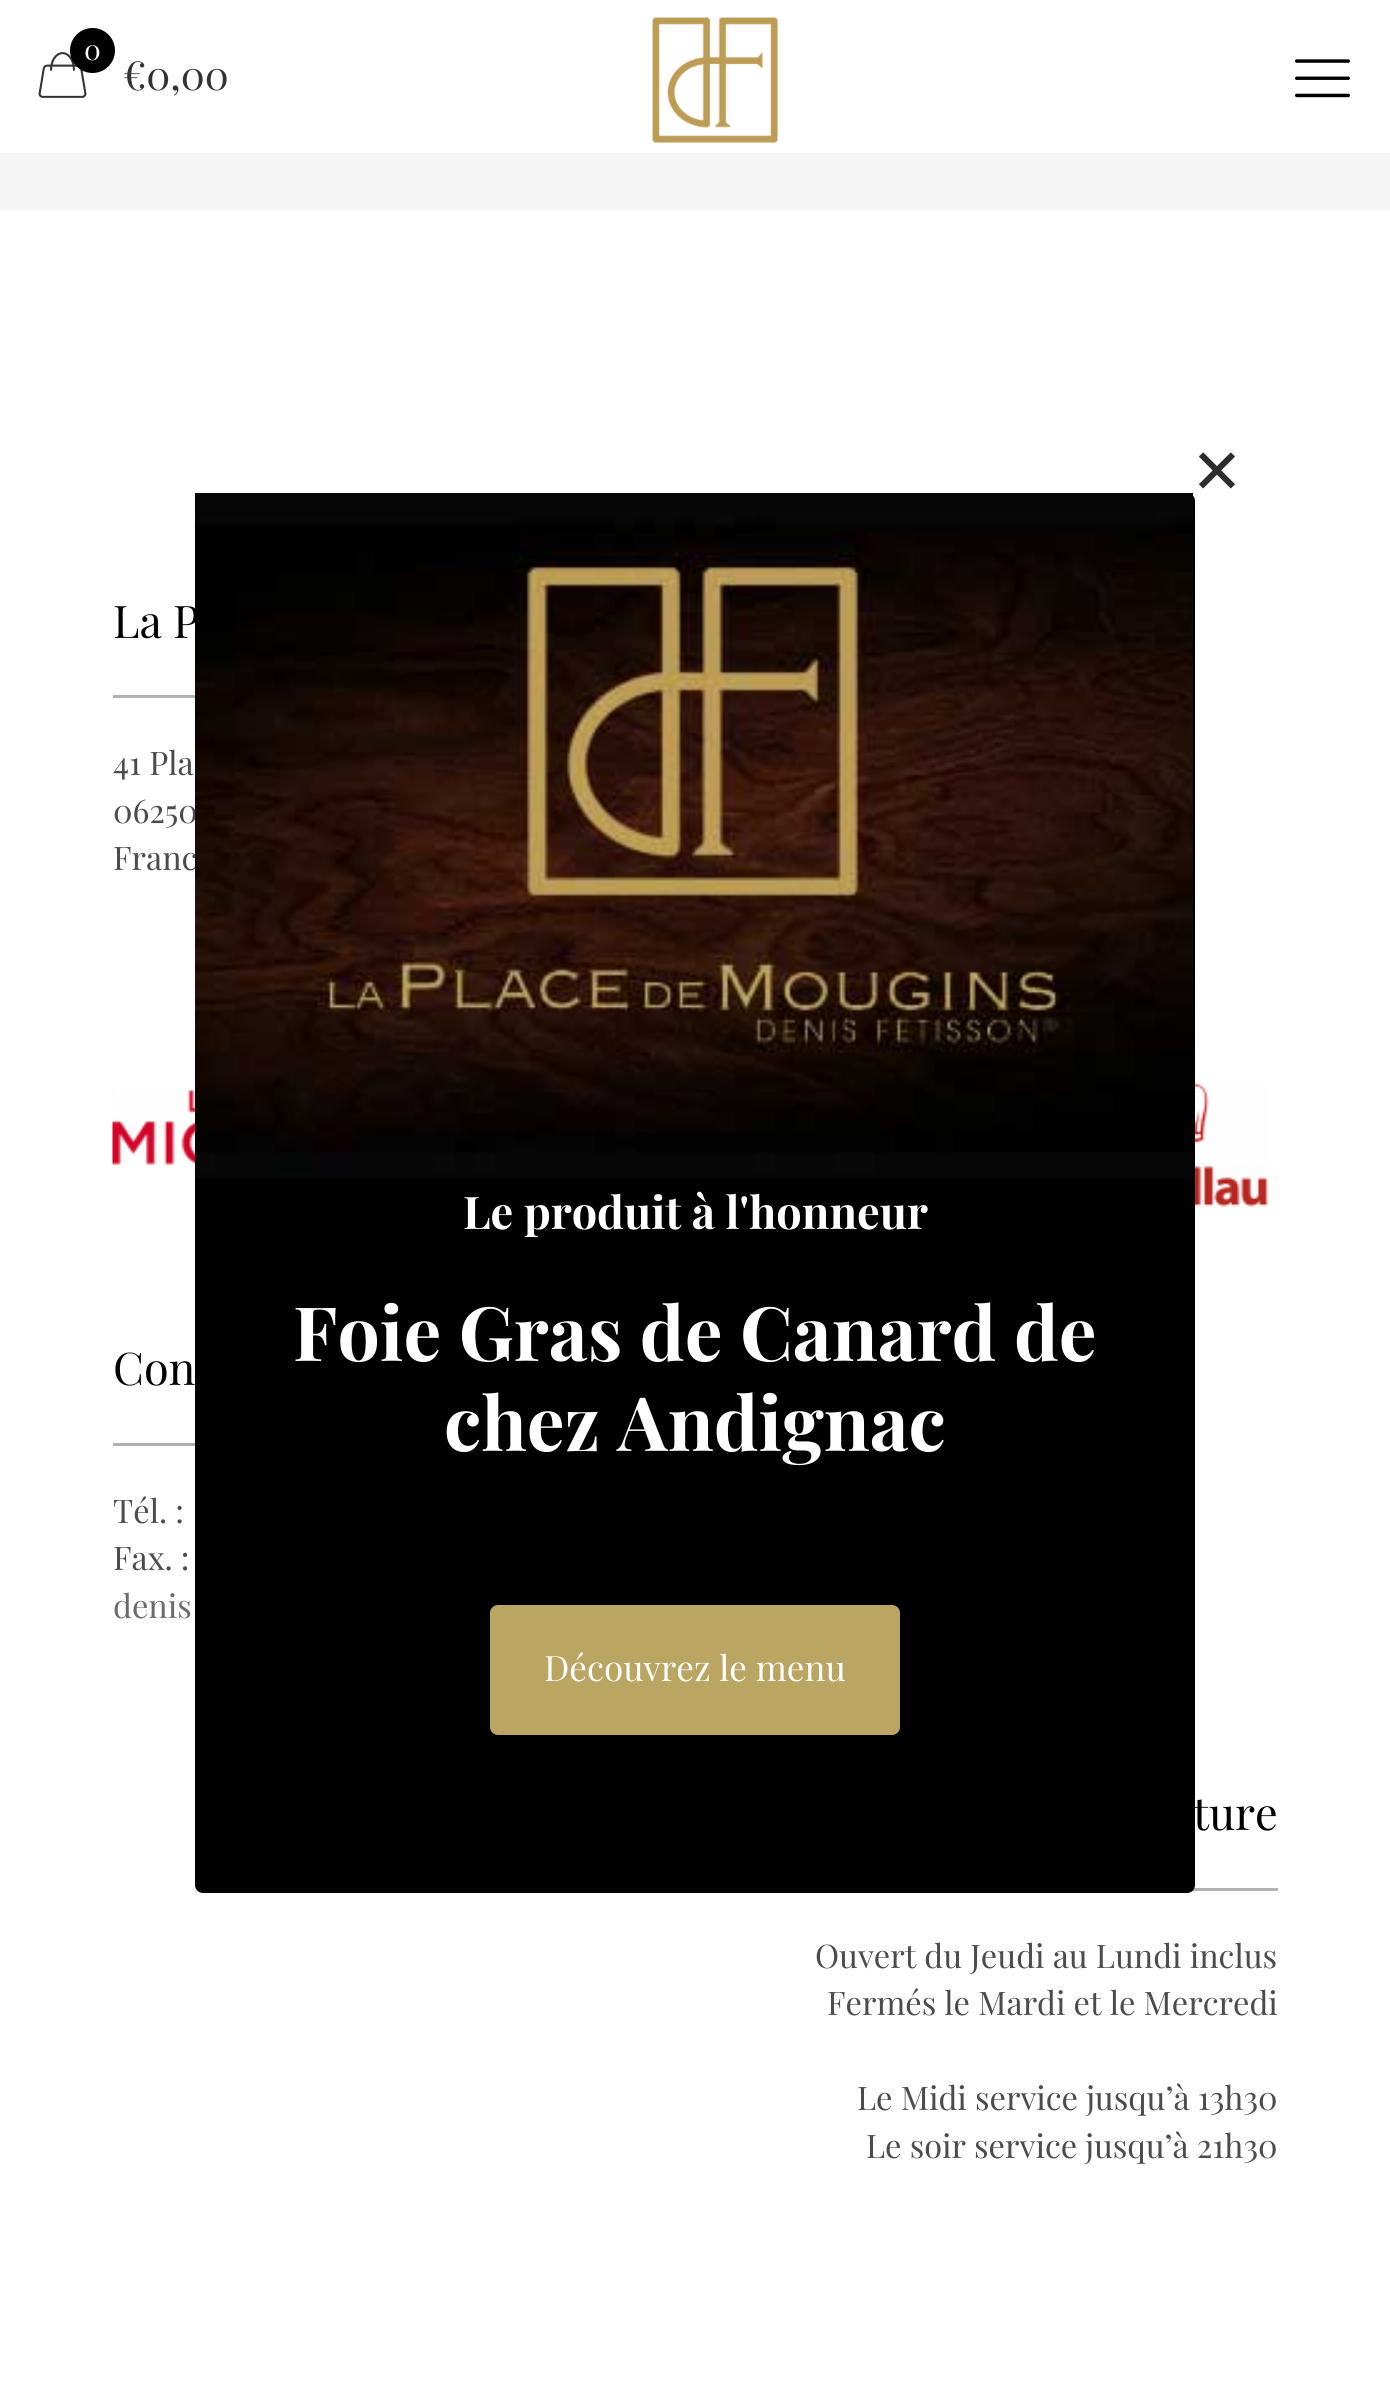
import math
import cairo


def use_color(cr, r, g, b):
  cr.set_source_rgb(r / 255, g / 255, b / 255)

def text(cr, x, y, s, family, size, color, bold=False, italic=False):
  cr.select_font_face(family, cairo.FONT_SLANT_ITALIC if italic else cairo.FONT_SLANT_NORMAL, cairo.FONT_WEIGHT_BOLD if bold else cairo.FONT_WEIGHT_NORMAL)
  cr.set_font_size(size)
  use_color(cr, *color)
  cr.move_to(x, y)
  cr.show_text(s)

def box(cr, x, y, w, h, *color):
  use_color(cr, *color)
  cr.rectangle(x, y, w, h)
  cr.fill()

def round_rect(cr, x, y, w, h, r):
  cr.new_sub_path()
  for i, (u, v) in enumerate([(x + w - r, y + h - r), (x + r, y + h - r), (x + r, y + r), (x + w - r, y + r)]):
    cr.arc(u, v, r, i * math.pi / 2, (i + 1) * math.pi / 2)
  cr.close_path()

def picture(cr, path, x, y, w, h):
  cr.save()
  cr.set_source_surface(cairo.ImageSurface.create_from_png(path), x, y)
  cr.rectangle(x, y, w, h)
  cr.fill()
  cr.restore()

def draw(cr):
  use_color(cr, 245, 245, 245)
  cr.paint()
  box(cr, 0, 0, 1390, 153, 255, 255, 255)
  picture(cr, "img_01.png", 38, 52, 49, 46)
  use_color(cr, 0, 0, 0)
  cr.arc(92.5, 50.5, 22.5, 0, 2 * math.pi)
  cr.fill()
  picture(cr, "img_02.png", 652, 17, 126, 126)
  picture(cr, "img_03.png", 1295, 59, 55, 39)
  box(cr, 0, 210, 1390, 2171, 255, 255, 255)
  box(cr, 113, 695, 82, 3, 178, 178, 178)
  picture(cr, "img_04.png", 112, 1088, 83, 77)
  picture(cr, "img_05.png", 1195, 1082, 74, 125)
  box(cr, 113, 1443, 82, 3, 178, 178, 178)
  box(cr, 1192, 1888, 86, 3, 178, 178, 178)
  text(cr, 84, 60, "0", "Playfair Display", 28, (255, 255, 255))
  text(cr, 123, 90, "€0,00", "Playfair Display", 40, (51, 51, 51))
  text(cr, 113, 638, "La P", "Playfair Display", 45, (0, 0, 0))
  text(cr, 113, 775, "41 Pla", "Playfair Display", 32.5, (76, 76, 76))
  text(cr, 113, 823, "06250", "Playfair Display", 32.5, (76, 76, 76))
  text(cr, 113, 870, "Franc", "Playfair Display", 32.5, (76, 76, 76))
  text(cr, 113, 1385, "Con", "Playfair Display", 45, (0, 0, 0))
  text(cr, 113, 1523, "Tél. :", "Playfair Display", 32.5, (76, 76, 76))
  text(cr, 113, 1570, "Fax. :", "Playfair Display", 32.5, (76, 76, 76))
  text(cr, 113, 1618, "denis", "Playfair Display", 32.5, (107, 107, 107))
  text(cr, 1193, 1830, "ture", "Playfair Display", 45, (0, 0, 0))
  text(cr, 815, 1968, "Ouvert du Jeudi au Lundi inclus", "Playfair Display", 32.5, (76, 76, 76))
  text(cr, 827, 2015, "Fermés le Mardi et le Mercredi", "Playfair Display", 32.5, (76, 76, 76))
  text(cr, 857, 2110, "Le Midi service jusqu’à 13h30", "Playfair Display", 32.5, (76, 76, 76))
  text(cr, 866, 2158, "Le soir service jusqu’à 21h30", "Playfair Display", 32.5, (76, 76, 76))
  use_color(cr, 0, 0, 0)
  round_rect(cr, 195, 493, 1000, 1400, 8)
  cr.fill()
  text(cr, 1191, 493, "✕", "DejaVu Sans", 62, (45, 45, 45))
  picture(cr, "img_06.png", 195, 493, 998, 685)
  text(cr, 463, 1229, "Le produit à l'honneur", "Playfair Display", 45, (255, 255, 255), bold=True)
  text(cr, 293, 1361, "Foie Gras de Canard de", "Playfair Display", 75, (255, 255, 255), bold=True)
  text(cr, 444, 1451, "chez Andignac", "Playfair Display", 75, (255, 255, 255), bold=True)
  use_color(cr, 186, 165, 98)
  round_rect(cr, 490, 1605, 410, 130, 8)
  cr.fill()
  text(cr, 544, 1681, "Découvrez le menu", "Playfair Display", 35, (255, 255, 255))


surface = cairo.ImageSurface(cairo.FORMAT_RGB24, 1390, 2381)
cr = cairo.Context(surface)
options = cairo.FontOptions()
options.set_hint_metrics(cairo.HINT_METRICS_OFF)
options.set_hint_style(cairo.HINT_STYLE_NONE)
cr.set_font_options(options)
cr.set_miter_limit(4)
draw(cr)
surface.write_to_png("out.png")
